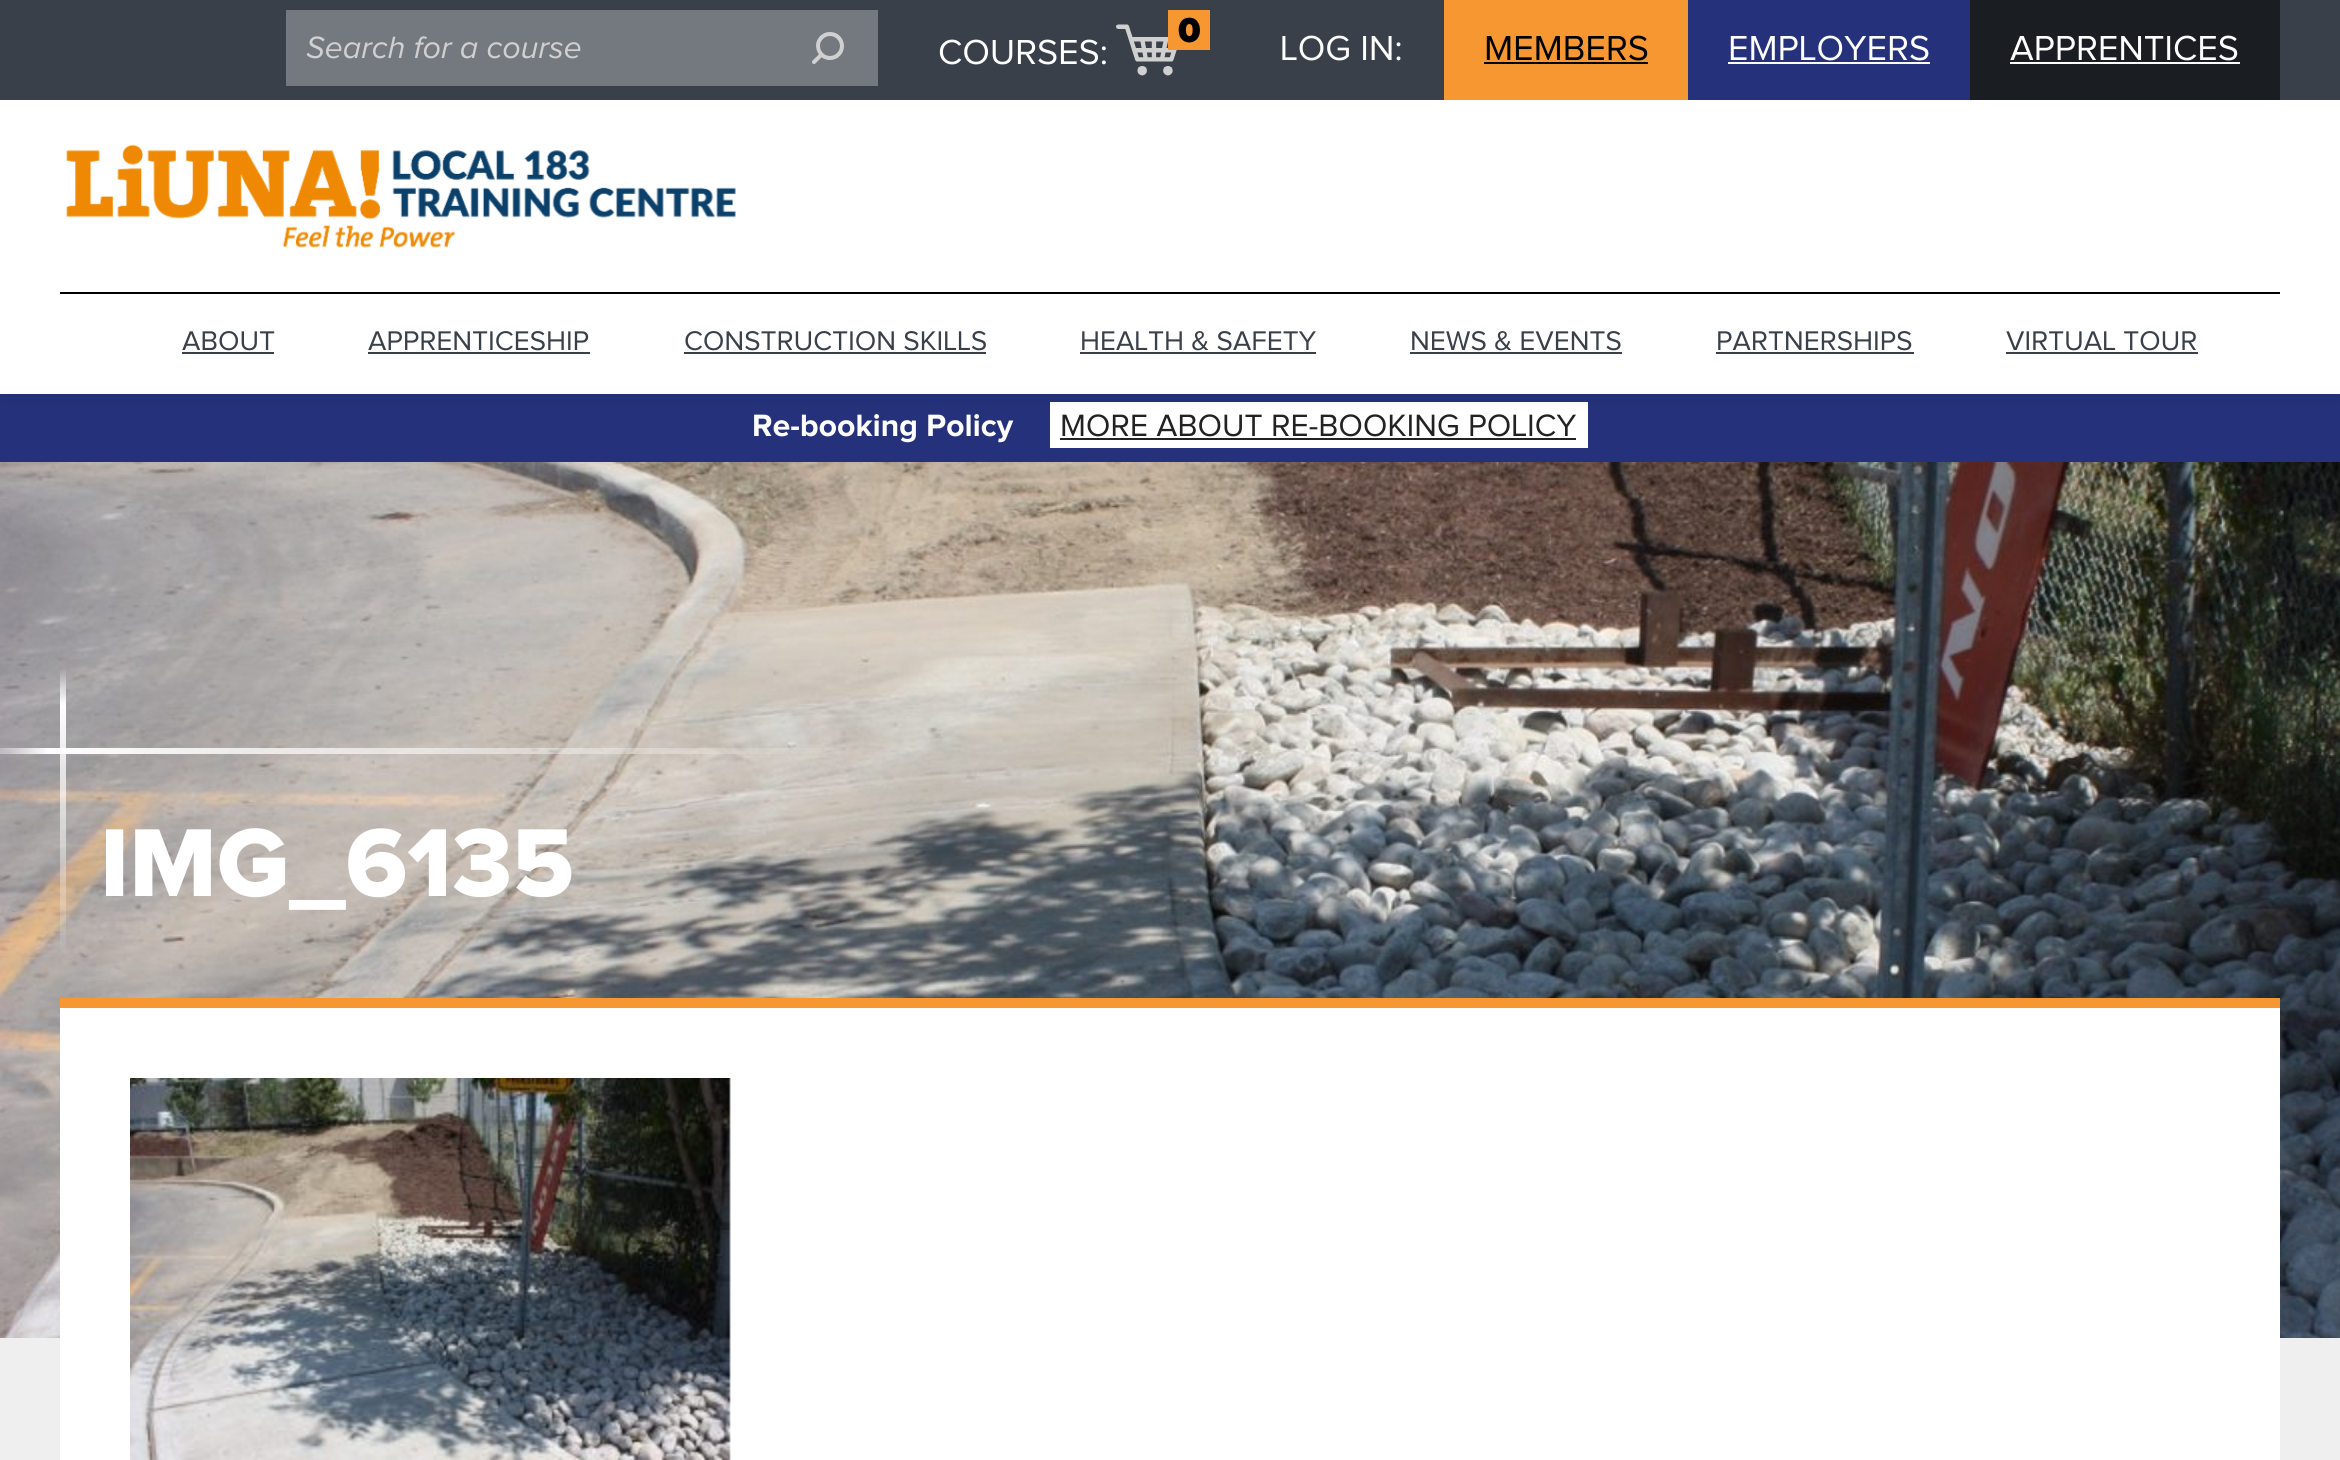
import math
import cairo


def use_color(cr, r, g, b):
  cr.set_source_rgb(r / 255, g / 255, b / 255)

def box(cr, x, y, w, h, *color):
  use_color(cr, *color)
  cr.rectangle(x, y, w, h)
  cr.fill()

def round_rect(cr, x, y, w, h, r):
  cr.new_sub_path()
  for i, (u, v) in enumerate([(x + w - r, y + h - r), (x + r, y + h - r), (x + r, y + r), (x + w - r, y + r)]):
    cr.arc(u, v, r, i * math.pi / 2, (i + 1) * math.pi / 2)
  cr.close_path()

def shadow(cr, x, y, w, h, r, blur, alpha):
  cr.push_group_with_content(cairo.CONTENT_ALPHA)
  cr.set_operator(cairo.OPERATOR_SOURCE)
  for i in range(15, -16, -2):
    e = blur * i / 6
    if min(w, h) + 2 * e > 0:
      cr.set_source_rgba(0, 0, 0, alpha * math.erfc((i - 1) / 8.5) / 2)
      round_rect(cr, x - e, y - e, w + 2 * e, h + 2 * e, max(0, min(r + e + blur * .6, min(w, h) / 2 + e)))
      cr.fill()
  cr.mask(cr.pop_group())

def picture(cr, path, x, y, w, h):
  cr.save()
  cr.set_source_surface(cairo.ImageSurface.create_from_png(path), x, y)
  cr.rectangle(x, y, w, h)
  cr.fill()
  cr.restore()

def draw(cr):
  use_color(cr, 239, 239, 239)
  cr.paint()
  box(cr, 0, 394, 2340, 68, 37, 50, 123)
  picture(cr, "img_18.png", 754, 414, 260, 29)
  box(cr, 1050, 402, 538, 46, 255, 255, 255)
  picture(cr, "img_19.png", 1062, 414, 514, 23)
  use_color(cr, 0, 0, 0)
  shadow(cr, 0, 0, 2340, 394, 0, 10, 0.1)
  box(cr, 0, 100, 2340, 294, 255, 255, 255)
  box(cr, 0, 0, 2340, 100, 57, 64, 73)
  box(cr, 286, 10, 592, 76, 116, 121, 128)
  picture(cr, "img_01.png", 306, 36, 275, 23)
  picture(cr, "img_02.png", 812, 32, 32, 32)
  picture(cr, "img_03.png", 939, 39, 167, 26)
  picture(cr, "img_04.png", 1116, 24, 61, 52)
  box(cr, 1168, 10, 42, 40, 246, 151, 49)
  picture(cr, "img_05.png", 1178, 17, 22, 26)
  picture(cr, "img_06.png", 1282, 35, 119, 26)
  box(cr, 1444, 0, 244, 100, 246, 151, 49)
  picture(cr, "img_07.png", 1486, 35, 162, 26)
  box(cr, 1484, 62, 164, 2, 0, 0, 0)
  box(cr, 1688, 0, 282, 100, 37, 50, 123)
  picture(cr, "img_08.png", 1730, 35, 199, 26)
  box(cr, 1728, 62, 202, 2, 255, 255, 255)
  box(cr, 1970, 0, 310, 100, 26, 30, 35)
  picture(cr, "img_09.png", 2010, 35, 228, 26)
  box(cr, 2010, 62, 230, 2, 255, 255, 255)
  picture(cr, "img_10.png", 66, 144, 670, 104)
  box(cr, 60, 292, 2220, 2, 0, 0, 0)
  picture(cr, "img_11.png", 182, 331, 93, 20)
  box(cr, 182, 352, 92, 2, 57, 64, 73)
  picture(cr, "img_12.png", 368, 331, 221, 20)
  box(cr, 368, 352, 222, 2, 57, 64, 73)
  picture(cr, "img_13.png", 685, 331, 301, 20)
  box(cr, 684, 352, 302, 2, 57, 64, 73)
  picture(cr, "img_14.png", 1082, 331, 234, 20)
  box(cr, 1080, 352, 236, 2, 57, 64, 73)
  picture(cr, "img_15.png", 1412, 331, 209, 20)
  box(cr, 1410, 352, 212, 2, 57, 64, 73)
  picture(cr, "img_16.png", 1718, 331, 194, 20)
  box(cr, 1716, 352, 198, 2, 57, 64, 73)
  picture(cr, "img_17.png", 2006, 331, 190, 20)
  box(cr, 2006, 352, 192, 2, 57, 64, 73)
  box(cr, 1060, 438, 516, 2, 34, 34, 34)
  picture(cr, "img_20.png", 0, 462, 2340, 876)
  picture(cr, "img_21.png", 106, 828, 466, 82)
  box(cr, 60, 1008, 2220, 452, 255, 255, 255)
  box(cr, 60, 998, 2220, 10, 246, 151, 49)
  picture(cr, "img_22.png", 130, 1078, 601, 382)


surface = cairo.ImageSurface(cairo.FORMAT_RGB24, 2340, 1460)
cr = cairo.Context(surface)
options = cairo.FontOptions()
options.set_hint_metrics(cairo.HINT_METRICS_OFF)
options.set_hint_style(cairo.HINT_STYLE_NONE)
cr.set_font_options(options)
cr.set_miter_limit(4)
draw(cr)
surface.write_to_png("out.png")
